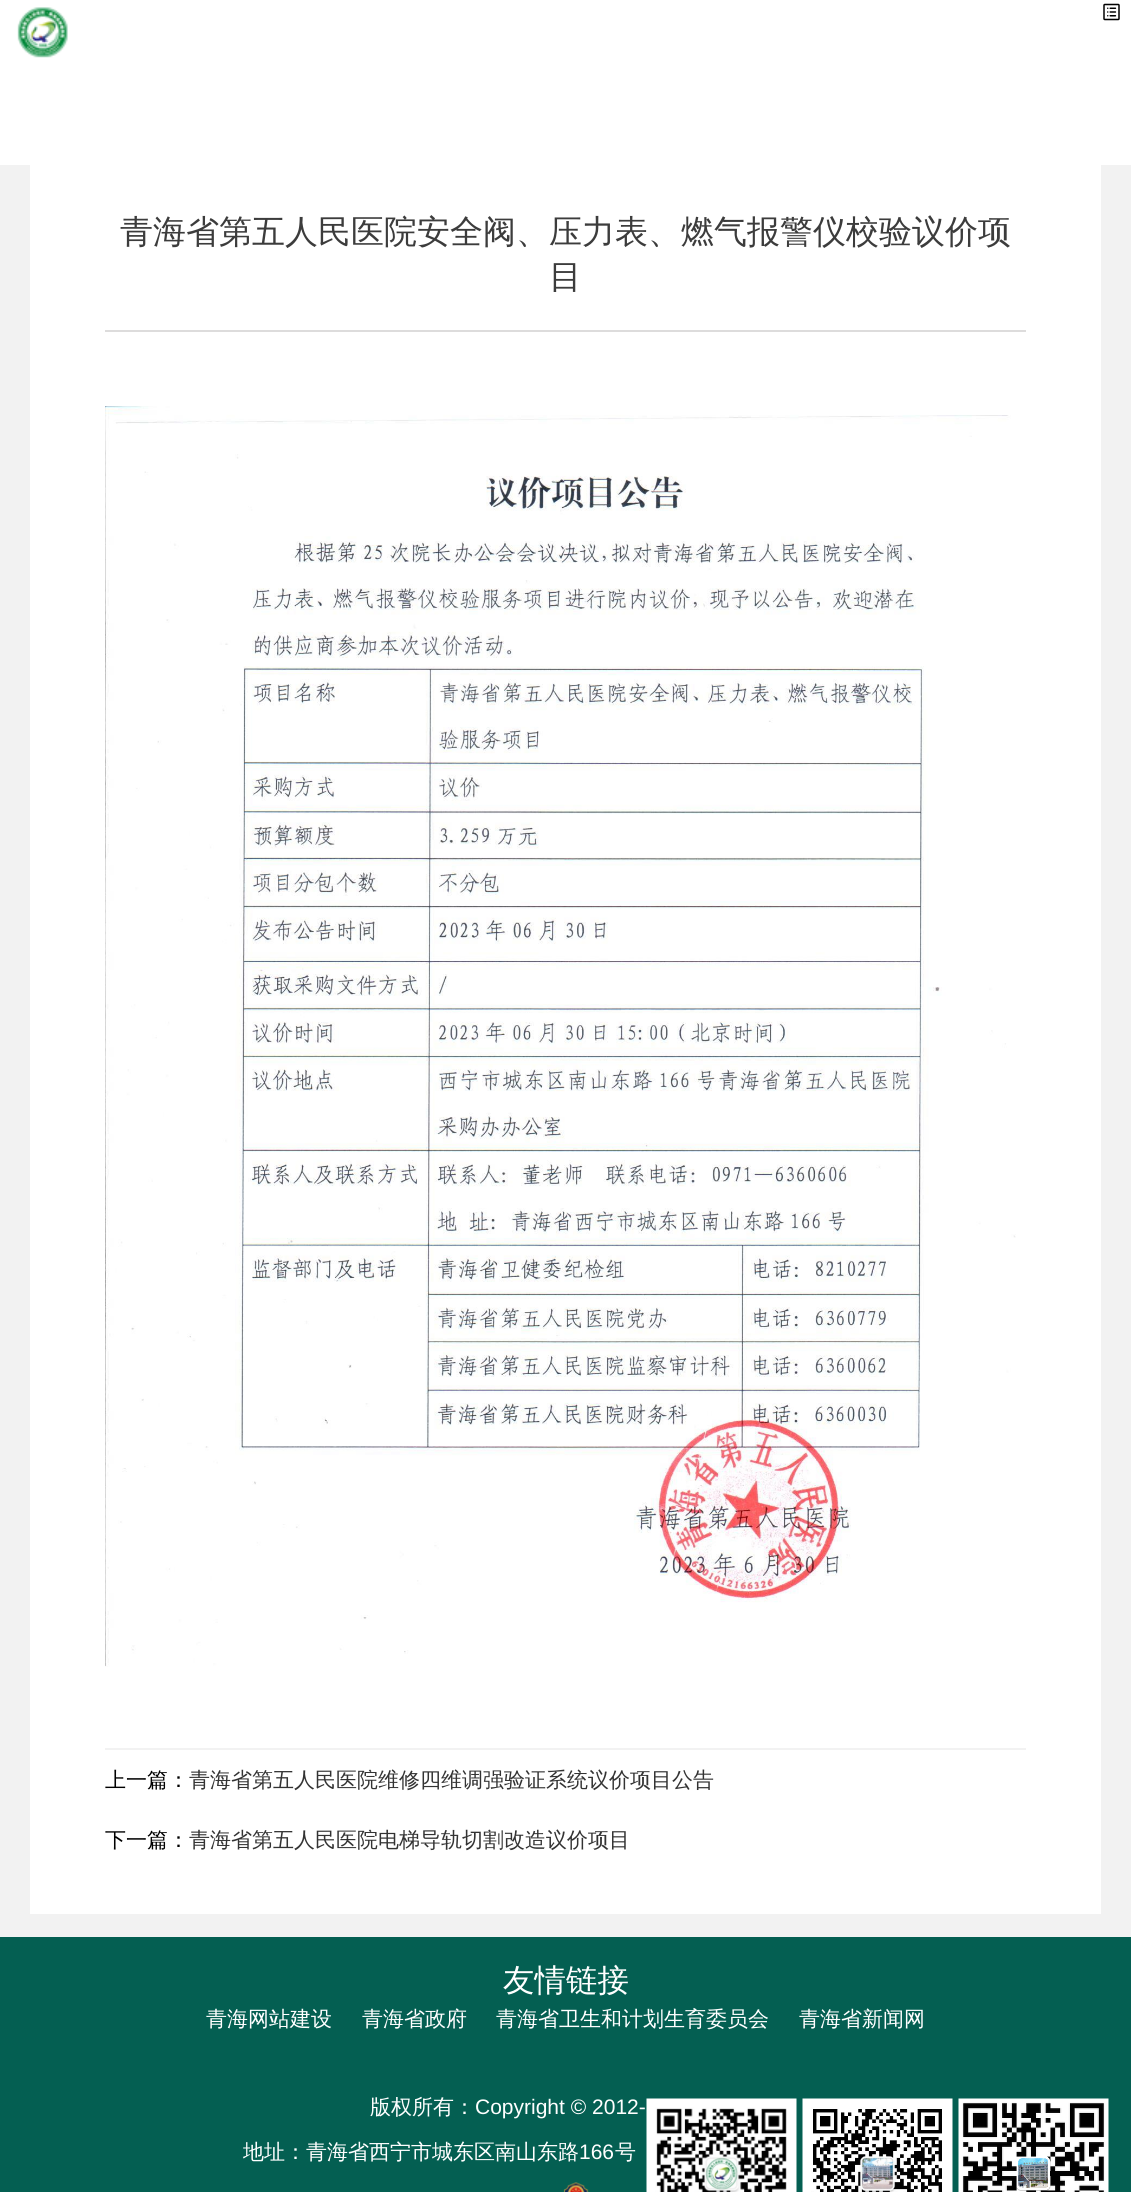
import math
import cairo


def use_color(cr, r, g, b):
  cr.set_source_rgb(r / 255, g / 255, b / 255)

def text(cr, x, y, s, family, size, color, bold=False, italic=False):
  cr.select_font_face(family, cairo.FONT_SLANT_ITALIC if italic else cairo.FONT_SLANT_NORMAL, cairo.FONT_WEIGHT_BOLD if bold else cairo.FONT_WEIGHT_NORMAL)
  cr.set_font_size(size)
  use_color(cr, *color)
  cr.move_to(x, y)
  cr.show_text(s)

def box(cr, x, y, w, h, *color):
  use_color(cr, *color)
  cr.rectangle(x, y, w, h)
  cr.fill()

def picture(cr, path, x, y, w, h):
  cr.save()
  cr.set_source_surface(cairo.ImageSurface.create_from_png(path), x, y)
  cr.rectangle(x, y, w, h)
  cr.fill()
  cr.restore()

def draw(cr):
  use_color(cr, 242, 242, 242)
  cr.paint()
  box(cr, 0, 0, 1131, 165, 255, 255, 255)
  picture(cr, "img_01.png", 17, 7, 51, 51)
  picture(cr, "img_02.png", 1103, 3, 17, 18)
  box(cr, 30, 165, 1071, 1749, 255, 255, 255)
  box(cr, 105, 330, 921, 2, 221, 220, 220)
  picture(cr, "img_03.png", 105, 406, 911, 1261)
  box(cr, 105, 1748, 921, 2, 242, 242, 242)
  box(cr, 0, 1937, 1131, 255, 4, 95, 82)
  picture(cr, "img_04.png", 646, 2098, 151, 94)
  picture(cr, "img_05.png", 802, 2098, 151, 94)
  picture(cr, "img_06.png", 958, 2098, 151, 94)
  picture(cr, "img_07.png", 563, 2182, 26, 10)
  text(cr, 120, 243, "青海省第五人民医院安全阀、压力表、燃气报警仪校验议价项", "WenQuanYi Zen Hei Medium", 33, (60, 60, 60))
  text(cr, 549, 288, "目", "WenQuanYi Zen Hei Medium", 33, (60, 60, 60))
  text(cr, 105, 1787, "上一篇：", "WenQuanYi Zen Hei Medium", 21, (0, 0, 0))
  text(cr, 189, 1787, "青海省第五人民医院维修四维调强验证系统议价项目公告", "WenQuanYi Zen Hei Medium", 21, (51, 51, 51))
  text(cr, 105, 1847, "下一篇：", "WenQuanYi Zen Hei Medium", 21, (0, 0, 0))
  text(cr, 189, 1847, "青海省第五人民医院电梯导轨切割改造议价项目", "WenQuanYi Zen Hei Medium", 21, (51, 51, 51))
  text(cr, 503, 1991, "友情链接", "WenQuanYi Zen Hei Medium", 31.5, (255, 255, 255))
  text(cr, 206, 2026, "青海网站建设", "WenQuanYi Zen Hei Medium", 21, (255, 255, 255))
  text(cr, 362, 2026, "青海省政府", "WenQuanYi Zen Hei Medium", 21, (255, 255, 255))
  text(cr, 496, 2026, "青海省卫生和计划生育委员会", "WenQuanYi Zen Hei Medium", 21, (255, 255, 255))
  text(cr, 799, 2026, "青海省新闻网", "WenQuanYi Zen Hei Medium", 21, (255, 255, 255))
  text(cr, 370, 2114, "版权所有：", "WenQuanYi Zen Hei Medium", 21, (255, 255, 255))
  text(cr, 475, 2114, "Copyright © 2012-", "Liberation Sans", 21, (255, 255, 255))
  text(cr, 243, 2159, "地址：青海省西宁市城东区南山东路", "WenQuanYi Zen Hei Medium", 21, (255, 255, 255))
  text(cr, 579, 2159, "166", "Liberation Sans", 21, (255, 255, 255))
  text(cr, 615, 2159, "号", "WenQuanYi Zen Hei Medium", 21, (255, 255, 255))


surface = cairo.ImageSurface(cairo.FORMAT_RGB24, 1131, 2192)
cr = cairo.Context(surface)
options = cairo.FontOptions()
options.set_hint_metrics(cairo.HINT_METRICS_OFF)
options.set_hint_style(cairo.HINT_STYLE_NONE)
cr.set_font_options(options)
cr.set_miter_limit(4)
draw(cr)
surface.write_to_png("out.png")
